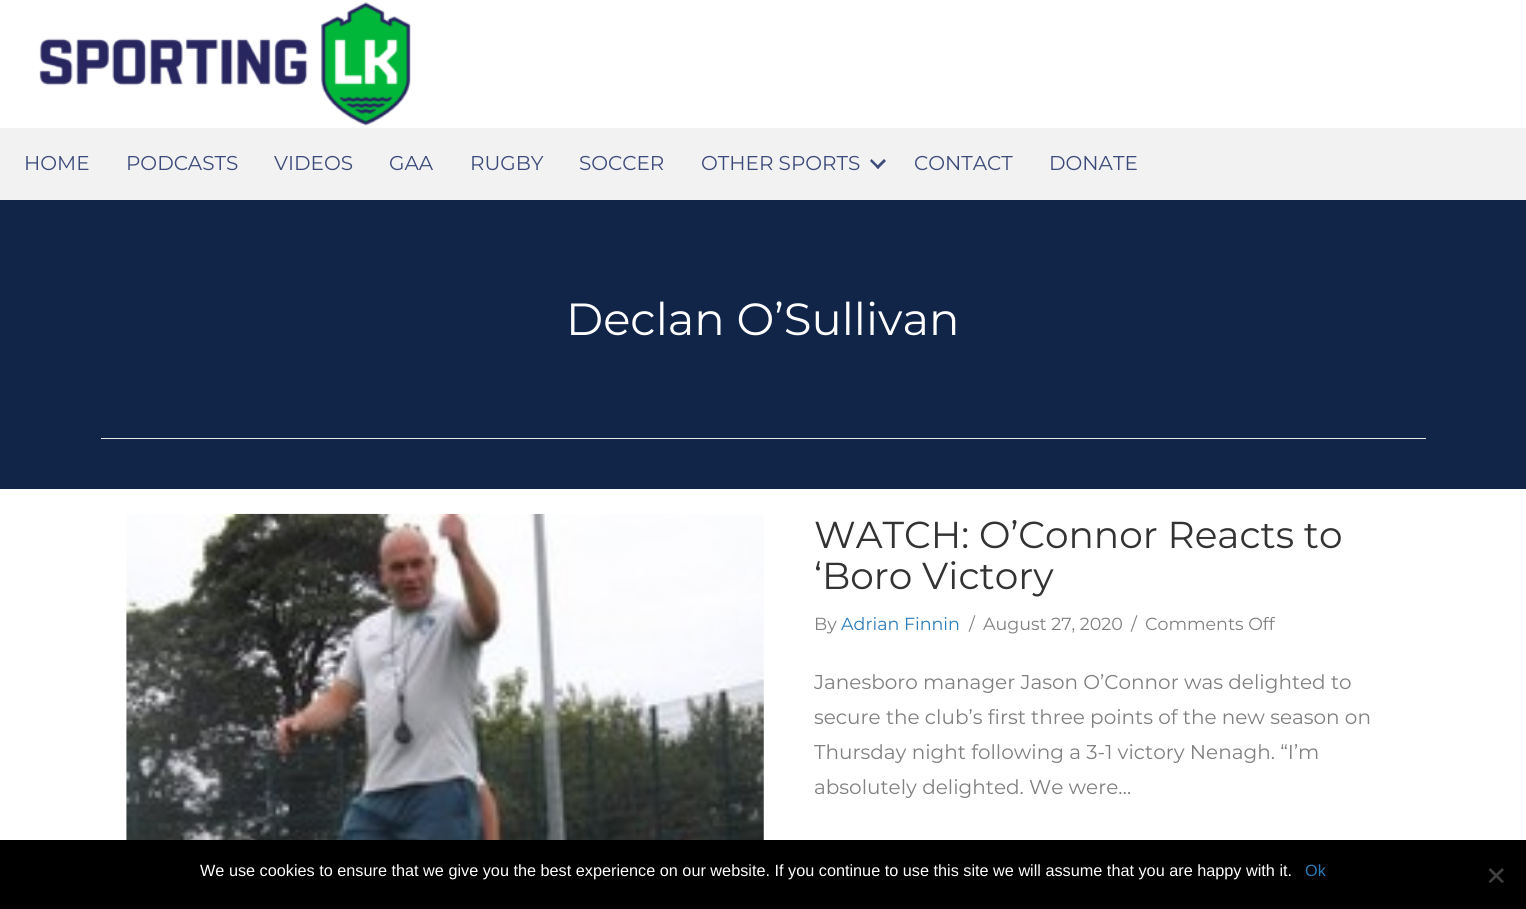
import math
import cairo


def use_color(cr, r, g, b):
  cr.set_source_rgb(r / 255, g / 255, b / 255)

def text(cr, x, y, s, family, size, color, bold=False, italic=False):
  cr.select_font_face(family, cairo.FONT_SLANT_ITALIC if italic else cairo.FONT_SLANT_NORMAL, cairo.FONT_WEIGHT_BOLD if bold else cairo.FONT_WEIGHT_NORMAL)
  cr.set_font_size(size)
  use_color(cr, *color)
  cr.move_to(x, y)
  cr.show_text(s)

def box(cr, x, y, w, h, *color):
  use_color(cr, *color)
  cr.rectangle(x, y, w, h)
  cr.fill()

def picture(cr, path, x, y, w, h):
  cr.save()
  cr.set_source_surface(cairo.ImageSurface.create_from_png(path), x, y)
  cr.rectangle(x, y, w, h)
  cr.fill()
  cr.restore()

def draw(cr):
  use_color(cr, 242, 242, 242)
  cr.paint()
  box(cr, 0, 0, 1526, 128, 255, 255, 255)
  picture(cr, "img_01.png", 39, 2, 372, 124)
  use_color(cr, 60, 75, 122)
  cr.new_path()
  cr.move_to(884, 159)
  cr.line_to(886, 161)
  cr.line_to(878, 169)
  cr.line_to(876, 167)
  cr.close_path()
  cr.fill()
  cr.new_path()
  cr.move_to(871.5, 159)
  cr.line_to(879.5, 167)
  cr.line_to(878, 169)
  cr.line_to(870, 161)
  cr.close_path()
  cr.fill()
  box(cr, 0, 489, 1526, 351, 255, 255, 255)
  box(cr, 0, 200, 1526, 289, 17, 37, 73)
  box(cr, 101, 438, 1325, 1, 234, 234, 234)
  picture(cr, "img_02.png", 126, 513, 638, 327)
  box(cr, 0, 840, 1526, 69, 0, 0, 0)
  use_color(cr, 64, 64, 64)
  cr.new_path()
  cr.move_to(1502, 868)
  cr.line_to(1504, 870)
  cr.line_to(1490.5, 883)
  cr.line_to(1488.5, 881.5)
  cr.close_path()
  cr.fill()
  cr.new_path()
  cr.move_to(1488.5, 870)
  cr.line_to(1490.5, 868)
  cr.line_to(1504, 881.5)
  cr.line_to(1502, 883)
  cr.close_path()
  cr.fill()
  text(cr, 24, 170, "HOME", "Montserrat", 20, (60, 75, 122))
  text(cr, 126, 170, "PODCASTS", "Montserrat", 20, (60, 75, 122))
  text(cr, 274, 170, "VIDEOS", "Montserrat", 20, (60, 75, 122))
  text(cr, 389, 170, "GAA", "Montserrat", 20, (60, 75, 122))
  text(cr, 470, 170, "RUGBY", "Montserrat", 20, (60, 75, 122))
  text(cr, 579, 170, "SOCCER", "Montserrat", 20, (60, 75, 122))
  text(cr, 701, 170, "OTHER SPORTS", "Montserrat", 20, (60, 75, 122))
  text(cr, 914, 170, "CONTACT", "Montserrat", 20, (60, 75, 122))
  text(cr, 1049, 170, "DONATE", "Montserrat", 20, (60, 75, 122))
  text(cr, 566, 335, "Declan O’Sullivan", "Montserrat", 45, (255, 255, 255))
  text(cr, 814, 548, "WATCH: O’Connor Reacts to", "Montserrat", 37.5, (51, 51, 51))
  text(cr, 814, 589, "‘Boro Victory", "Montserrat", 37.5, (51, 51, 51))
  text(cr, 814, 630, "By", "Montserrat", 17.5, (128, 128, 128))
  text(cr, 841, 630, "Adrian Finnin", "Montserrat", 17.5, (43, 123, 185))
  text(cr, 969, 630, "/", "Montserrat", 17.5, (128, 128, 128))
  text(cr, 983, 630, "August 27, 2020", "Montserrat", 17.5, (128, 128, 128))
  text(cr, 1131, 630, "/", "Montserrat", 17.5, (128, 128, 128))
  text(cr, 1145, 630, "Comments Off", "Montserrat", 17.5, (128, 128, 128))
  text(cr, 814, 689, "Janesboro manager Jason O’Connor was delighted to", "Montserrat", 20, (128, 128, 128))
  text(cr, 814, 724, "secure the club’s first three points of the new season on", "Montserrat", 20, (128, 128, 128))
  text(cr, 814, 759, "Thursday night following a 3-1 victory Nenagh. “I’m", "Montserrat", 20, (128, 128, 128))
  text(cr, 814, 794, "absolutely delighted. We were…", "Montserrat", 20, (128, 128, 128))
  text(cr, 200, 876, "We use cookies to ensure that we give you the best experience on our website. If you continue to use this site we will assume that you are happy with it.", "Liberation Sans", 16.25, (255, 255, 255))
  text(cr, 1305, 876, "Ok", "Liberation Sans", 16.25, (43, 123, 185))


surface = cairo.ImageSurface(cairo.FORMAT_RGB24, 1526, 909)
cr = cairo.Context(surface)
options = cairo.FontOptions()
options.set_hint_metrics(cairo.HINT_METRICS_OFF)
options.set_hint_style(cairo.HINT_STYLE_NONE)
cr.set_font_options(options)
cr.set_miter_limit(4)
draw(cr)
surface.write_to_png("out.png")
